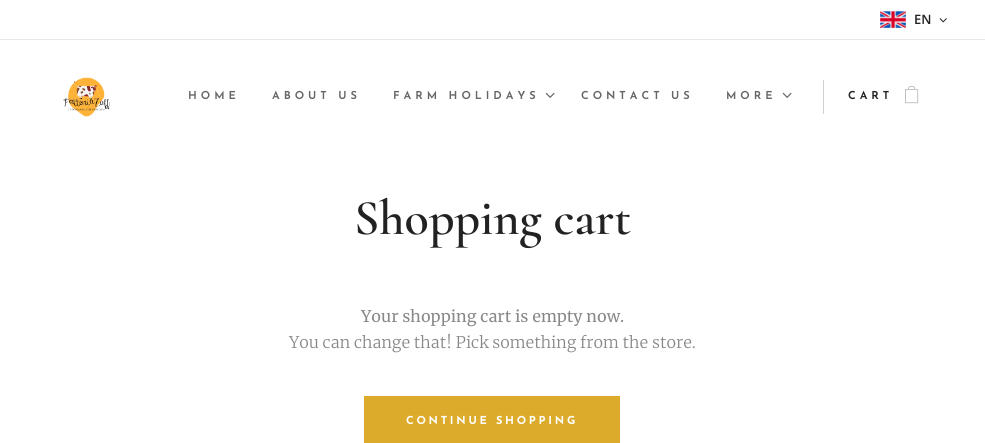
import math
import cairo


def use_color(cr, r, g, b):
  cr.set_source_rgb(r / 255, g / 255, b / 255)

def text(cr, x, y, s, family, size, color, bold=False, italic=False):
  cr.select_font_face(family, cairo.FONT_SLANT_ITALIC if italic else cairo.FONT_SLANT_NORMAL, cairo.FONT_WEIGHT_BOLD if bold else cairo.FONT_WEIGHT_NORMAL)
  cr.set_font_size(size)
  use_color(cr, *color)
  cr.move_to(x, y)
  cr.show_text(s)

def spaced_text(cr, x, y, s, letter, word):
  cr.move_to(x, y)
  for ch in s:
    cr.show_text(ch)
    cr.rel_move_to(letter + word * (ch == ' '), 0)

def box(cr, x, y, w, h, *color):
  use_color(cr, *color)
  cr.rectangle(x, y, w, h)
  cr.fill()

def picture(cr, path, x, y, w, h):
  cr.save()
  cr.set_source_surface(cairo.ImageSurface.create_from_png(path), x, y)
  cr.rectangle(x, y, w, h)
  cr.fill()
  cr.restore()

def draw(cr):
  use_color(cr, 255, 255, 255)
  cr.paint()
  picture(cr, "img_01.png", 880, 11, 26, 17)
  picture(cr, "img_02.png", 939, 18, 8, 5)
  box(cr, 0, 39, 985, 1, 232, 232, 232)
  picture(cr, "img_03.png", 63, 77, 47, 40)
  picture(cr, "img_04.png", 545, 92, 10, 6)
  picture(cr, "img_04.png", 782, 92, 10, 6)
  box(cr, 823, 80, 1, 34, 209, 209, 209)
  picture(cr, "img_05.png", 905, 86, 14, 18)
  box(cr, 364, 396, 256, 47, 220, 171, 43)
  text(cr, 914, 24, "EN", "Open Sans SemiBold", 13, (34, 34, 34))
  cr.select_font_face("Josefin Sans SemiBold")
  cr.set_font_size(11)
  use_color(cr, 102, 102, 102)
  spaced_text(cr, 188, 99, "HOME", 4, 0)
  spaced_text(cr, 272, 99, "ABOUT US", 4, 0)
  spaced_text(cr, 393, 99, "FARM HOLIDAYS", 4, 0)
  spaced_text(cr, 581, 99, "CONTACT US", 4, 0)
  spaced_text(cr, 726, 99, "MORE", 4, 0)
  use_color(cr, 34, 34, 34)
  spaced_text(cr, 848, 99, "CART", 4, 0)
  text(cr, 354, 234, "Shopping cart", "Cormorant SemiBold", 50, (34, 34, 34))
  text(cr, 361, 322, "Your shopping cart is empty now.", "Merriweather", 16, (136, 136, 136))
  text(cr, 289, 348, "You can change that! Pick something from the store.", "Merriweather Light", 16, (136, 136, 136))
  cr.select_font_face("Josefin Sans", cairo.FONT_SLANT_NORMAL, cairo.FONT_WEIGHT_BOLD)
  cr.set_font_size(11)
  use_color(cr, 255, 255, 255)
  spaced_text(cr, 406, 424, "CONTINUE SHOPPING", 2.75, 0)


surface = cairo.ImageSurface(cairo.FORMAT_RGB24, 985, 443)
cr = cairo.Context(surface)
options = cairo.FontOptions()
options.set_hint_metrics(cairo.HINT_METRICS_OFF)
options.set_hint_style(cairo.HINT_STYLE_NONE)
cr.set_font_options(options)
cr.set_miter_limit(4)
draw(cr)
surface.write_to_png("out.png")
